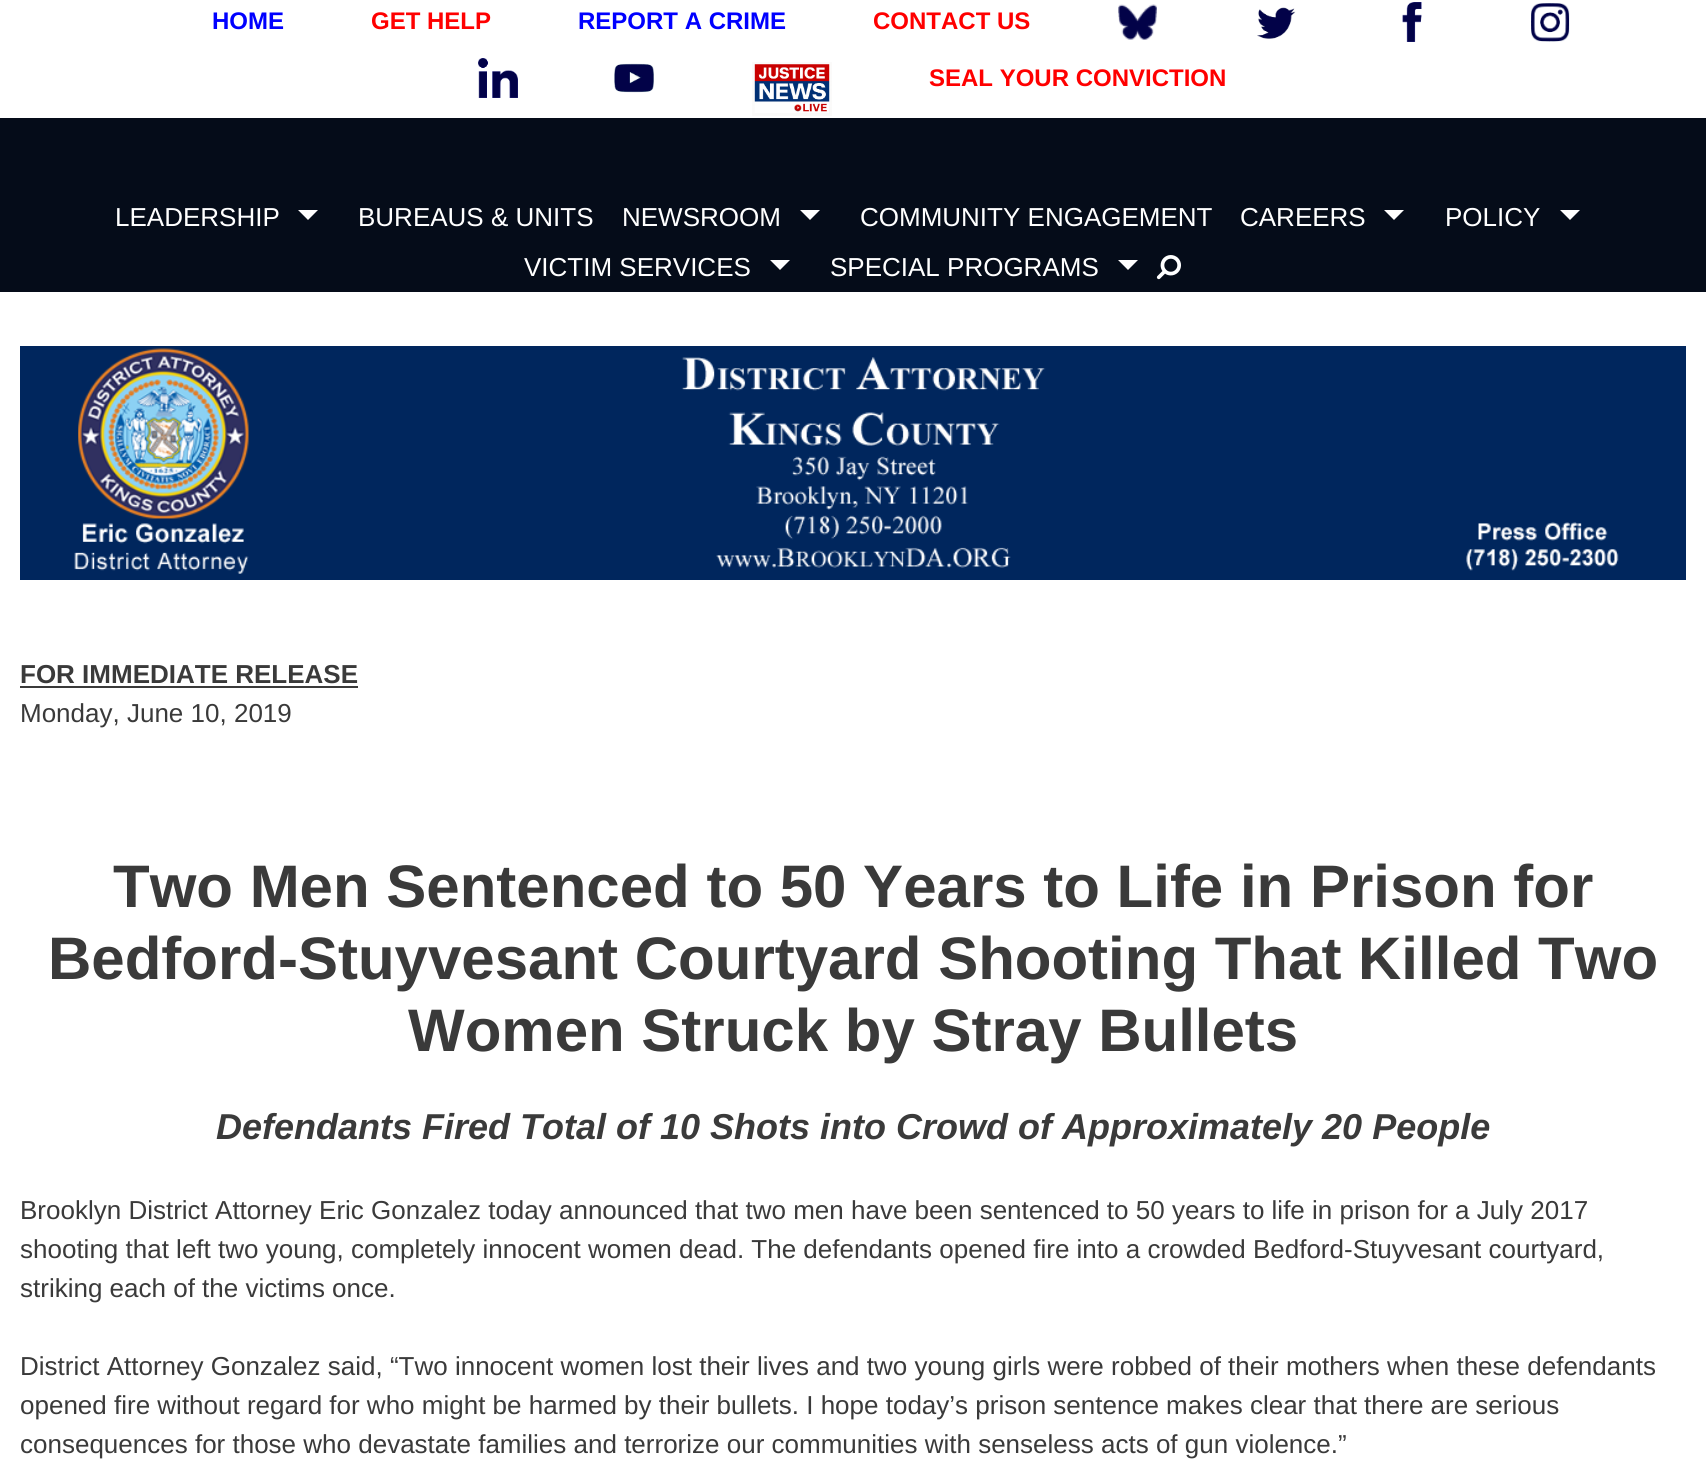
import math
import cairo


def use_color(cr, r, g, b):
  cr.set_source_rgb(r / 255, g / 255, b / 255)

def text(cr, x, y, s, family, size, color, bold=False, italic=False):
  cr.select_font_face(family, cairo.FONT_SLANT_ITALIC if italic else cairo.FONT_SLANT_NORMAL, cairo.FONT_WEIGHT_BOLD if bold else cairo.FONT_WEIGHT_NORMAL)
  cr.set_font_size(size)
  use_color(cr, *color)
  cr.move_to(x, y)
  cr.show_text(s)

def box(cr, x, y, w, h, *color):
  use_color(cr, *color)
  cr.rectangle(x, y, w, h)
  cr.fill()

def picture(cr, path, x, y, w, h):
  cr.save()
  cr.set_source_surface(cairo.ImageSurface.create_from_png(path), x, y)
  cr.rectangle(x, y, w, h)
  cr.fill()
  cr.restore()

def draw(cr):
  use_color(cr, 255, 255, 255)
  cr.paint()
  picture(cr, "img_01.png", 1118, 4, 39, 36)
  picture(cr, "img_02.png", 1257, 7, 39, 32)
  picture(cr, "img_03.png", 1402, 2, 20, 40)
  picture(cr, "img_04.png", 1531, 3, 39, 39)
  picture(cr, "img_05.png", 478, 58, 40, 40)
  picture(cr, "img_06.png", 614, 63, 40, 30)
  picture(cr, "img_07.png", 752, 62, 80, 54)
  box(cr, 0, 118, 1706, 174, 5, 12, 25)
  use_color(cr, 255, 255, 255)
  cr.new_path()
  cr.move_to(298, 210)
  cr.line_to(318, 210)
  cr.line_to(308, 220)
  cr.close_path()
  cr.fill()
  cr.new_path()
  cr.move_to(800, 210)
  cr.line_to(820, 210)
  cr.line_to(810, 220)
  cr.close_path()
  cr.fill()
  cr.new_path()
  cr.move_to(1384, 210)
  cr.line_to(1404, 210)
  cr.line_to(1394, 220)
  cr.close_path()
  cr.fill()
  cr.new_path()
  cr.move_to(1560, 210)
  cr.line_to(1580, 210)
  cr.line_to(1570, 220)
  cr.close_path()
  cr.fill()
  cr.new_path()
  cr.move_to(770, 260)
  cr.line_to(790, 260)
  cr.line_to(780, 270)
  cr.close_path()
  cr.fill()
  cr.new_path()
  cr.move_to(1118, 260)
  cr.line_to(1138, 260)
  cr.line_to(1128, 270)
  cr.close_path()
  cr.fill()
  picture(cr, "img_08.png", 1156, 255, 25, 25)
  picture(cr, "img_09.png", 20, 346, 1666, 234)
  box(cr, 20, 686, 338, 2, 58, 58, 58)
  text(cr, 212, 29, "HOME", "Liberation Sans", 24, (0, 0, 255), bold=True)
  text(cr, 371, 29, "GET HELP", "Liberation Sans", 24, (255, 0, 0), bold=True)
  text(cr, 578, 29, "REPORT A CRIME", "Liberation Sans", 24, (0, 0, 255), bold=True)
  text(cr, 873, 29, "CONTACT US", "Liberation Sans", 24, (255, 0, 0), bold=True)
  text(cr, 929, 86, "SEAL YOUR CONVICTION", "Liberation Sans", 24, (255, 0, 0), bold=True)
  text(cr, 115, 226, "LEADERSHIP", "Liberation Sans", 26, (255, 255, 255))
  text(cr, 358, 226, "BUREAUS & UNITS", "Liberation Sans", 26, (255, 255, 255))
  text(cr, 622, 226, "NEWSROOM", "Liberation Sans", 26, (255, 255, 255))
  text(cr, 860, 226, "COMMUNITY ENGAGEMENT", "Liberation Sans", 26, (255, 255, 255))
  text(cr, 1240, 226, "CAREERS", "Liberation Sans", 26, (255, 255, 255))
  text(cr, 1445, 226, "POLICY", "Liberation Sans", 26, (255, 255, 255))
  text(cr, 524, 276, "VICTIM SERVICES", "Liberation Sans", 26, (255, 255, 255))
  text(cr, 830, 276, "SPECIAL PROGRAMS", "Liberation Sans", 26, (255, 255, 255))
  text(cr, 20, 683, "FOR IMMEDIATE RELEASE", "Liberation Sans", 26, (58, 58, 58), bold=True)
  text(cr, 20, 722, "Monday, June 10, 2019", "Liberation Sans", 26, (58, 58, 58))
  text(cr, 113, 907, "Two Men Sentenced to 50 Years to Life in Prison for", "Liberation Sans", 60, (58, 58, 58), bold=True)
  text(cr, 48, 979, "Bedford-Stuyvesant Courtyard Shooting That Killed Two", "Liberation Sans", 60, (58, 58, 58), bold=True)
  text(cr, 408, 1051, "Women Struck by Stray Bullets", "Liberation Sans", 60, (58, 58, 58), bold=True)
  text(cr, 216, 1139, "Defendants Fired Total of 10 Shots into Crowd of Approximately 20 People", "Liberation Sans", 36, (58, 58, 58), bold=True, italic=True)
  text(cr, 20, 1219, "Brooklyn District Attorney Eric Gonzalez today announced that two men have been sentenced to 50 years to life in prison for a July 2017", "Liberation Sans", 26, (58, 58, 58))
  text(cr, 20, 1258, "shooting that left two young, completely innocent women dead. The defendants opened fire into a crowded Bedford-Stuyvesant courtyard,", "Liberation Sans", 26, (58, 58, 58))
  text(cr, 20, 1297, "striking each of the victims once.", "Liberation Sans", 26, (58, 58, 58))
  text(cr, 20, 1375, "District Attorney Gonzalez said, “Two innocent women lost their lives and two young girls were robbed of their mothers when these defendants", "Liberation Sans", 26, (58, 58, 58))
  text(cr, 20, 1414, "opened fire without regard for who might be harmed by their bullets. I hope today’s prison sentence makes clear that there are serious", "Liberation Sans", 26, (58, 58, 58))
  text(cr, 20, 1453, "consequences for those who devastate families and terrorize our communities with senseless acts of gun violence.”", "Liberation Sans", 26, (58, 58, 58))


surface = cairo.ImageSurface(cairo.FORMAT_RGB24, 1706, 1467)
cr = cairo.Context(surface)
options = cairo.FontOptions()
options.set_hint_metrics(cairo.HINT_METRICS_OFF)
options.set_hint_style(cairo.HINT_STYLE_NONE)
cr.set_font_options(options)
cr.set_miter_limit(4)
draw(cr)
surface.write_to_png("out.png")
